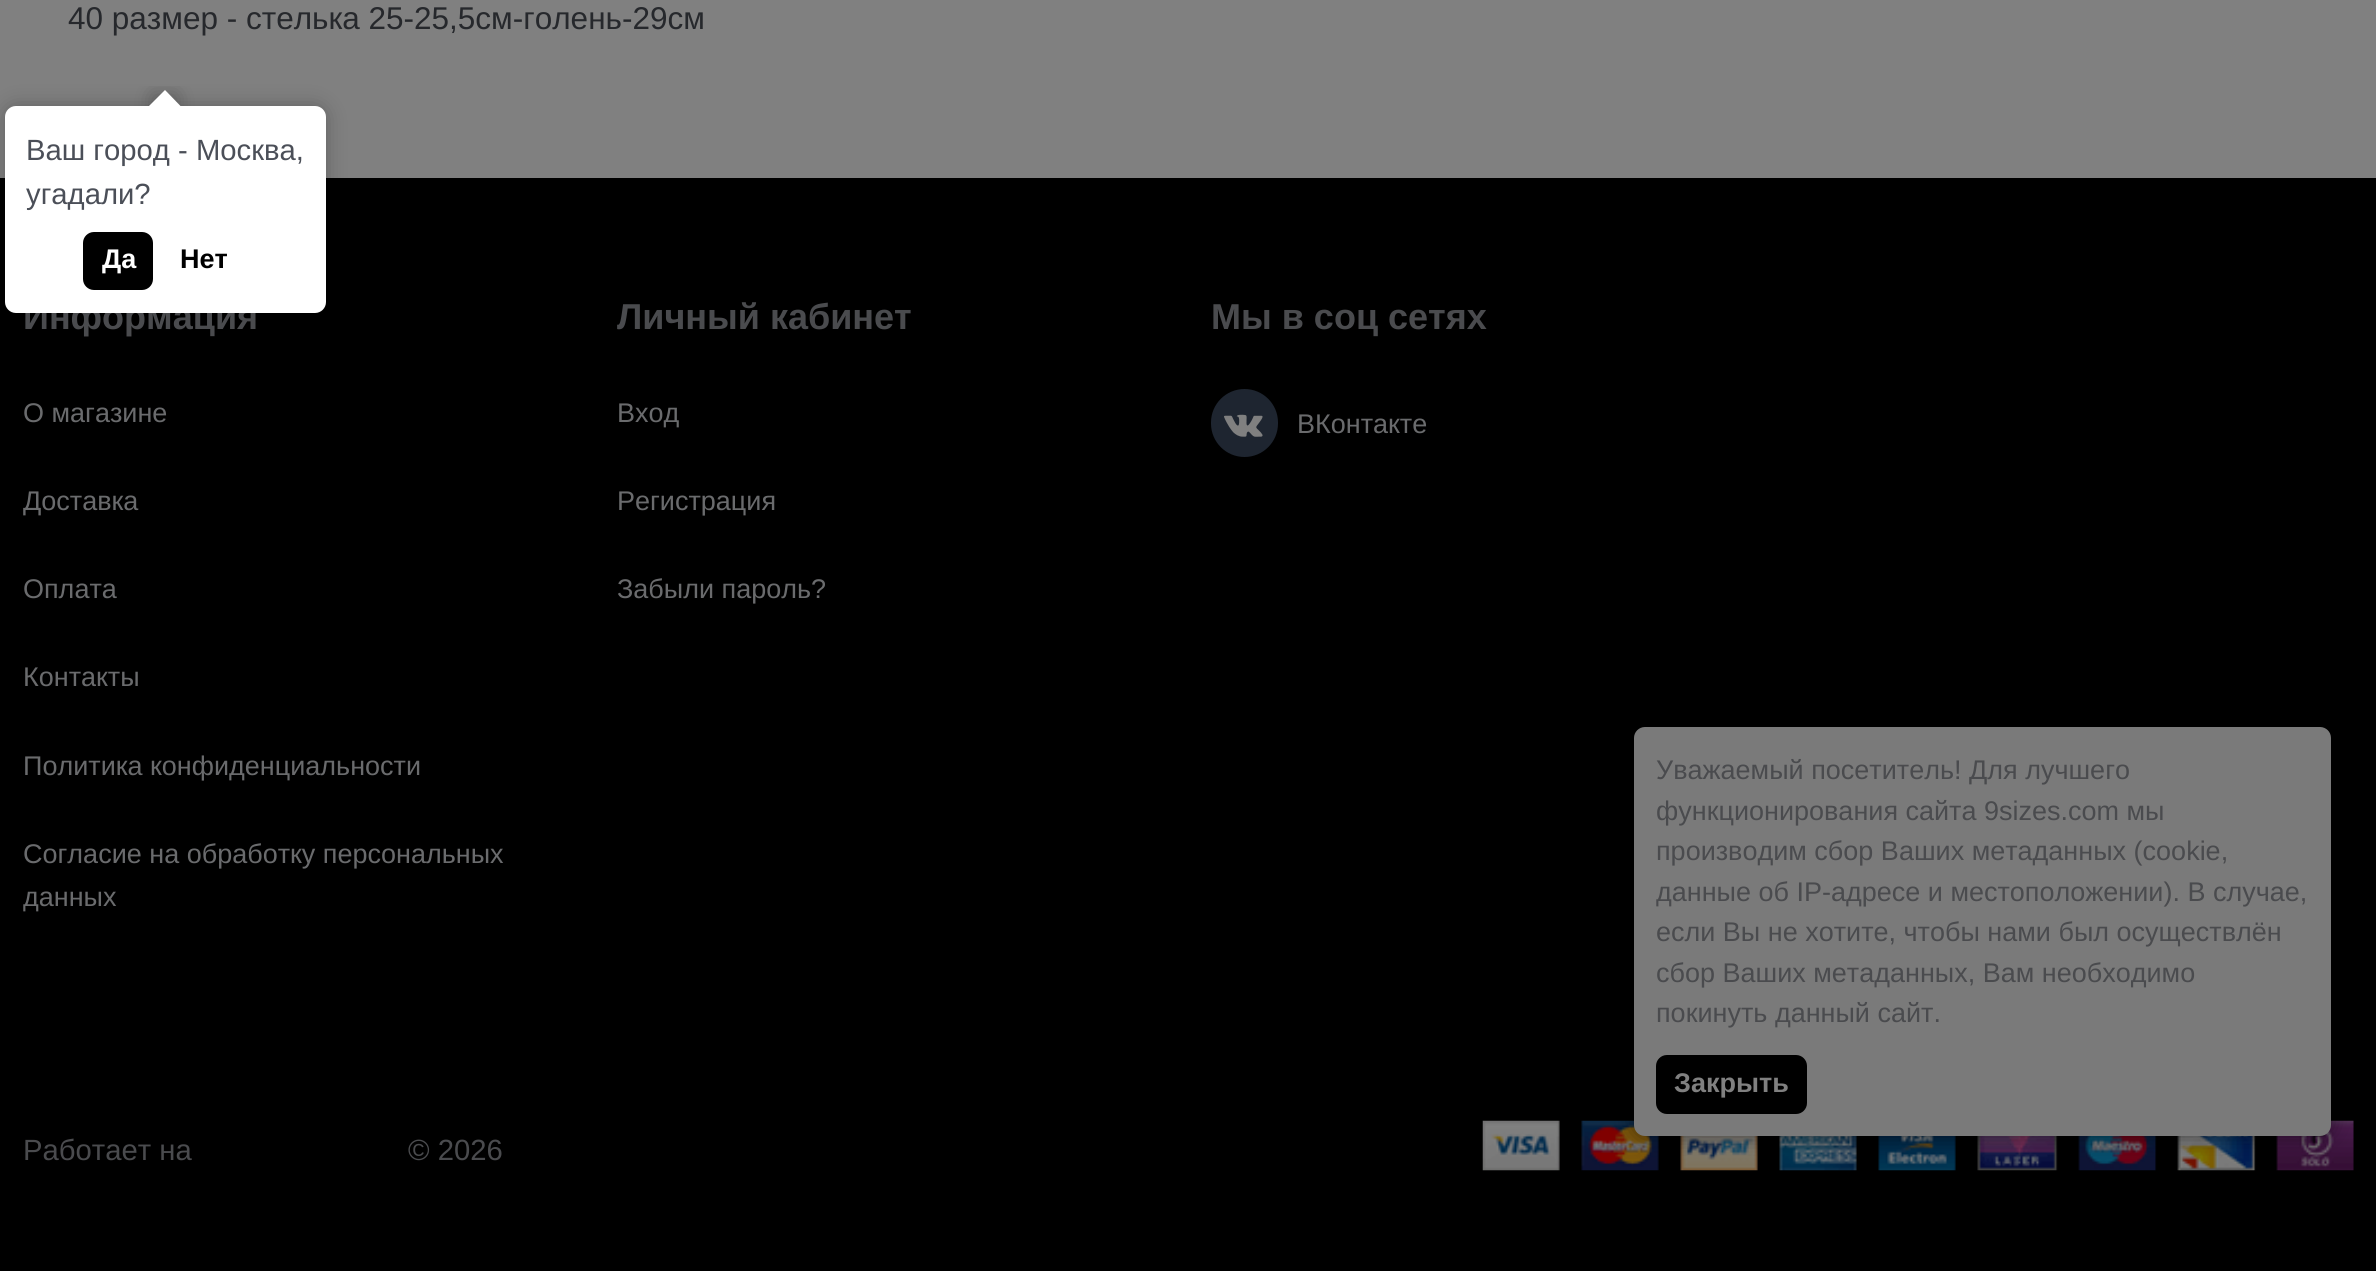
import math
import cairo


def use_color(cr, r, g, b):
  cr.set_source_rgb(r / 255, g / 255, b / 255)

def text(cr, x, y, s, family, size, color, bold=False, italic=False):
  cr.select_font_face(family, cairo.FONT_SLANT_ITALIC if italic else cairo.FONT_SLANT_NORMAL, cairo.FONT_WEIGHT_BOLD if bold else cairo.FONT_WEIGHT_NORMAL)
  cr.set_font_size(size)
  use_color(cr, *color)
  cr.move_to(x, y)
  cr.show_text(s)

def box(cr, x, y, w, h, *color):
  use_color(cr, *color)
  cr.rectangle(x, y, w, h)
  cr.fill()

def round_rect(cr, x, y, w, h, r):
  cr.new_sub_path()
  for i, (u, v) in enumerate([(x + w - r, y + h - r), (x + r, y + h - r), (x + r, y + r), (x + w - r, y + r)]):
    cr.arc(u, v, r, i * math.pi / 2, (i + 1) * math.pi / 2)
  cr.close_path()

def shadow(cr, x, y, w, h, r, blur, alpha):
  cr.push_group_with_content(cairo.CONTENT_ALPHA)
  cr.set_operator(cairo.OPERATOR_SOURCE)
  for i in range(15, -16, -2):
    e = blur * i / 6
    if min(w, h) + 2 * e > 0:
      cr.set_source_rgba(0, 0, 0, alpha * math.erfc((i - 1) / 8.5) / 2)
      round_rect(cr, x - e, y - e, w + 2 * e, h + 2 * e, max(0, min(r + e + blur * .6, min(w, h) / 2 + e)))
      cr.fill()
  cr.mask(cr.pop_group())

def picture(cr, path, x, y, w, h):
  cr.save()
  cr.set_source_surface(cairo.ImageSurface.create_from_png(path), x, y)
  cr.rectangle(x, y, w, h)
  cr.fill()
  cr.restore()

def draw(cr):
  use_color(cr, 128, 128, 128)
  cr.paint()
  box(cr, 0, 178, 2376, 1093, 0, 0, 0)
  use_color(cr, 30, 37, 48)
  round_rect(cr, 1211, 389, 67, 68, 33.5)
  cr.fill()
  picture(cr, "img_01.png", 1224, 414, 39, 23)
  picture(cr, "img_02.png", 1482, 1120, 872, 51)
  use_color(cr, 0, 0, 0)
  shadow(cr, 5, 106, 321, 207, 11, 10, 0.25)
  shadow(cr, 1634, 727, 697, 409, 11, 11, 0.5)
  use_color(cr, 122, 122, 122)
  round_rect(cr, 1634, 727, 697, 409, 11)
  cr.fill()
  use_color(cr, 0, 0, 0)
  round_rect(cr, 1656, 1055, 151, 59, 11)
  cr.fill()
  text(cr, 68, 29, "40 размер - стелька 25-25,5см-голень-29см", "Liberation Sans", 31.5, (38, 40, 44))
  text(cr, 23, 329, "Информация", "Liberation Sans", 36, (74, 75, 78), bold=True)
  text(cr, 23, 422, "О магазине", "Liberation Sans", 27, (106, 107, 109))
  text(cr, 23, 510, "Доставка", "Liberation Sans", 27, (106, 107, 109))
  text(cr, 23, 598, "Оплата", "Liberation Sans", 27, (106, 107, 109))
  text(cr, 23, 686, "Контакты", "Liberation Sans", 27, (106, 107, 109))
  text(cr, 23, 775, "Политика конфиденциальности", "Liberation Sans", 27, (106, 107, 109))
  text(cr, 23, 863, "Согласие на обработку персональных", "Liberation Sans", 27, (106, 107, 109))
  text(cr, 23, 906, "данных", "Liberation Sans", 27, (106, 107, 109))
  text(cr, 617, 329, "Личный кабинет", "Liberation Sans", 36, (74, 75, 78), bold=True)
  text(cr, 617, 422, "Вход", "Liberation Sans", 27, (106, 107, 109))
  text(cr, 617, 510, "Регистрация", "Liberation Sans", 27, (106, 107, 109))
  text(cr, 617, 598, "Забыли пароль?", "Liberation Sans", 27, (106, 107, 109))
  text(cr, 1211, 329, "Мы в соц сетях", "Liberation Sans", 36, (74, 75, 78), bold=True)
  text(cr, 1297, 433, "ВКонтакте", "Liberation Sans", 27, (106, 107, 109))
  text(cr, 23, 1160, "Работает на", "Liberation Sans", 29.25, (74, 75, 78))
  text(cr, 408, 1160, "© 2026", "Liberation Sans", 29.25, (74, 75, 78))
  use_color(cr, 255, 255, 255)
  round_rect(cr, 5, 106, 321, 207, 11)
  cr.fill()
  cr.save()
  cr.rectangle(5, 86, 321, 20)
  cr.clip()
  use_color(cr, 0, 0, 0)
  shadow(cr, 153, 95, 23, 22, 0, 10, 0.25)
  cr.restore()
  cr.save()
  cr.rectangle(5, 86, 321, 20)
  cr.clip()
  cr.new_path()
  cr.move_to(165, 90)
  cr.line_to(180.5, 106)
  cr.line_to(165, 122)
  cr.line_to(149, 106)
  cr.close_path()
  cr.fill()
  cr.restore()
  text(cr, 26, 160, "Ваш город - Москва,", "Liberation Sans", 29.25, (75, 79, 88))
  text(cr, 26, 204, "угадали?", "Liberation Sans", 29.25, (75, 79, 88))
  use_color(cr, 0, 0, 0)
  round_rect(cr, 83, 232, 70, 58, 11)
  cr.fill()
  text(cr, 102, 268, "Да", "Liberation Sans", 27, (255, 255, 255), bold=True)
  text(cr, 180, 268, "Нет", "Liberation Sans", 27, (0, 0, 0), bold=True)
  text(cr, 1656, 779, "Уважаемый посетитель! Для лучшего", "Liberation Sans", 27, (74, 75, 78))
  text(cr, 1656, 820, "функционирования сайта 9sizes.com мы", "Liberation Sans", 27, (74, 75, 78))
  text(cr, 1656, 860, "производим сбор Ваших метаданных (cookie,", "Liberation Sans", 27, (74, 75, 78))
  text(cr, 1656, 901, "данные об IP-адресе и местоположении). В случае,", "Liberation Sans", 27, (74, 75, 78))
  text(cr, 1656, 941, "если Вы не хотите, чтобы нами был осуществлён", "Liberation Sans", 27, (74, 75, 78))
  text(cr, 1656, 982, "сбор Ваших метаданных, Вам необходимо", "Liberation Sans", 27, (74, 75, 78))
  text(cr, 1656, 1022, "покинуть данный сайт.", "Liberation Sans", 27, (74, 75, 78))
  text(cr, 1674, 1092, "Закрыть", "Liberation Sans", 27, (128, 128, 128), bold=True)


surface = cairo.ImageSurface(cairo.FORMAT_RGB24, 2376, 1271)
cr = cairo.Context(surface)
options = cairo.FontOptions()
options.set_hint_metrics(cairo.HINT_METRICS_OFF)
options.set_hint_style(cairo.HINT_STYLE_NONE)
cr.set_font_options(options)
cr.set_miter_limit(4)
draw(cr)
surface.write_to_png("out.png")
